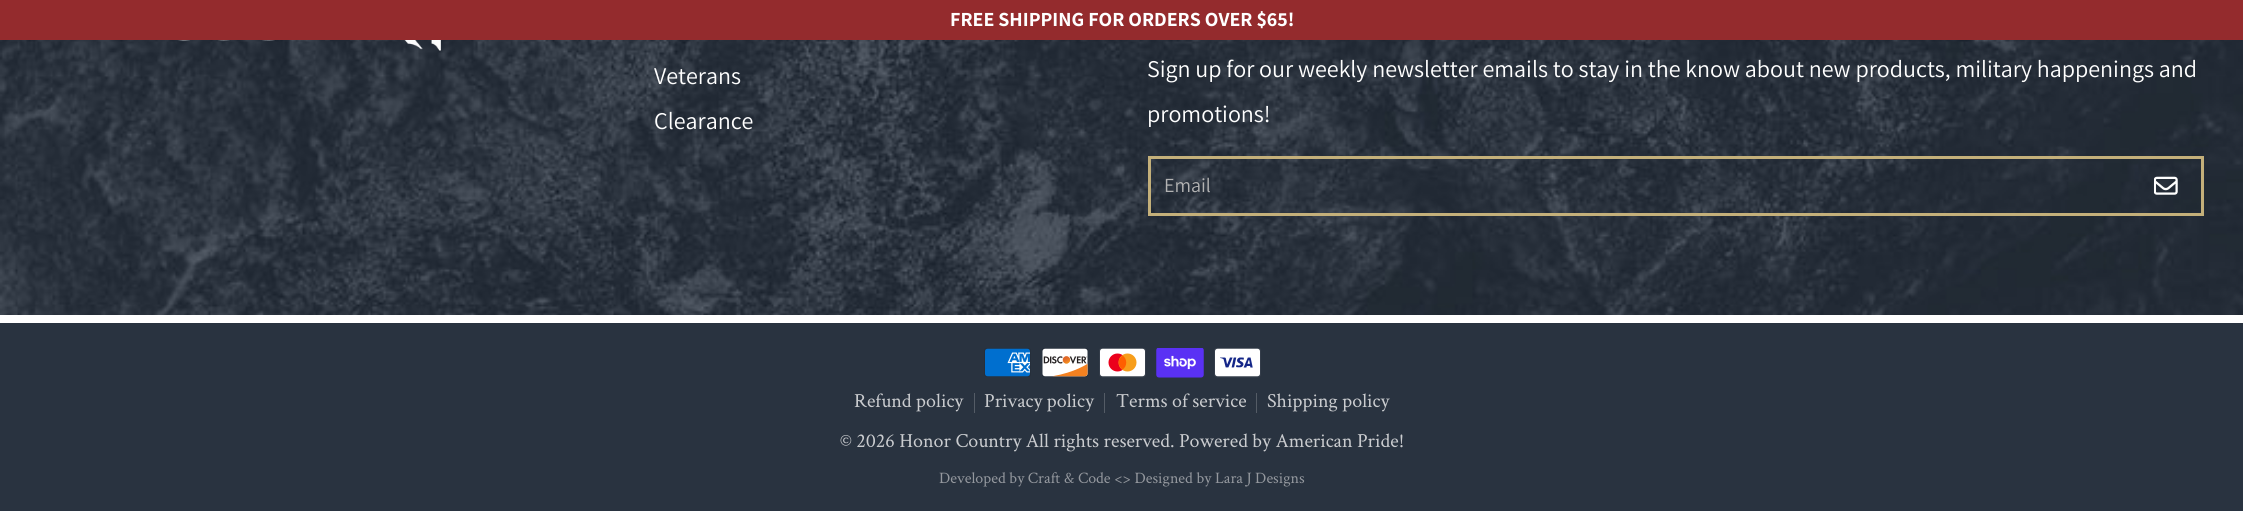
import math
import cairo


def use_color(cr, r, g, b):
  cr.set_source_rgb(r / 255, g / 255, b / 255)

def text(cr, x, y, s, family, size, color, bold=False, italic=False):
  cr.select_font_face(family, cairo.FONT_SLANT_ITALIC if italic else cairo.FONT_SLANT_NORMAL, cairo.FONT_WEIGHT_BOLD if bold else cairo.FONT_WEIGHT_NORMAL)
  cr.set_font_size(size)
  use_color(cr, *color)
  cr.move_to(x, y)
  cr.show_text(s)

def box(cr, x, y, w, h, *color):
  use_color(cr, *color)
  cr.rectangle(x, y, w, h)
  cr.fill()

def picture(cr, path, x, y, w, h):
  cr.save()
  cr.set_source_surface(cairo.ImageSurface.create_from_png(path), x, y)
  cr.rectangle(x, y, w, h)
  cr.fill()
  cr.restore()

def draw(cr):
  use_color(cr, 41, 51, 64)
  cr.paint()
  box(cr, 0, 0, 2243, 40, 148, 43, 45)
  picture(cr, "img_01.png", 0, 40, 2243, 275)
  box(cr, 0, 315, 2243, 8, 255, 255, 255)
  picture(cr, "img_02.png", 177, 40, 264, 11)
  box(cr, 1148, 156, 1056, 3, 196, 176, 122)
  box(cr, 1148, 213, 986, 3, 196, 176, 122)
  box(cr, 1148, 156, 3, 59, 196, 176, 122)
  box(cr, 2201, 156, 3, 59, 196, 176, 122)
  box(cr, 2134, 213, 70, 3, 196, 176, 122)
  picture(cr, "img_03.png", 2154, 176, 24, 19)
  picture(cr, "img_04.png", 984, 348, 47, 29)
  picture(cr, "img_05.png", 1042, 348, 46, 29)
  picture(cr, "img_06.png", 1099, 348, 47, 30)
  picture(cr, "img_07.png", 1156, 348, 48, 30)
  picture(cr, "img_08.png", 1214, 348, 47, 30)
  box(cr, 974, 393, 1, 20, 84, 92, 102)
  box(cr, 1104, 393, 1, 20, 84, 92, 102)
  box(cr, 1256, 393, 1, 20, 84, 92, 102)
  text(cr, 950, 26, "FREE SHIPPING FOR ORDERS OVER $65!", "Assistant", 20, (255, 255, 255), bold=True)
  text(cr, 654, 84, "Veterans", "Assistant", 24, (255, 255, 255))
  text(cr, 654, 129, "Clearance", "Assistant", 24, (255, 255, 255))
  text(cr, 1147, 77, "Sign up for our weekly newsletter emails to stay in the know about new products, military happenings and", "Assistant", 24, (255, 255, 255))
  text(cr, 1147, 122, "promotions!", "Assistant", 24, (255, 255, 255))
  text(cr, 1164, 192, "Email", "Assistant", 20, (179, 179, 179))
  text(cr, 854, 407, "Refund policy", "Crimson Text", 20, (202, 204, 207))
  text(cr, 984, 407, "Privacy policy", "Crimson Text", 20, (202, 204, 207))
  text(cr, 1116, 407, "Terms of service", "Crimson Text", 20, (202, 204, 207))
  text(cr, 1267, 407, "Shipping policy", "Crimson Text", 20, (202, 204, 207))
  text(cr, 840, 447, "© 2026 Honor Country All rights reserved. Powered by American Pride!", "Crimson Text", 20, (202, 204, 207))
  text(cr, 939, 483, "Developed by Craft & Code <> Designed by Lara J Designs", "Crimson Text", 16, (148, 152, 158))


surface = cairo.ImageSurface(cairo.FORMAT_RGB24, 2243, 511)
cr = cairo.Context(surface)
options = cairo.FontOptions()
options.set_hint_metrics(cairo.HINT_METRICS_OFF)
options.set_hint_style(cairo.HINT_STYLE_NONE)
cr.set_font_options(options)
cr.set_miter_limit(4)
draw(cr)
surface.write_to_png("out.png")
